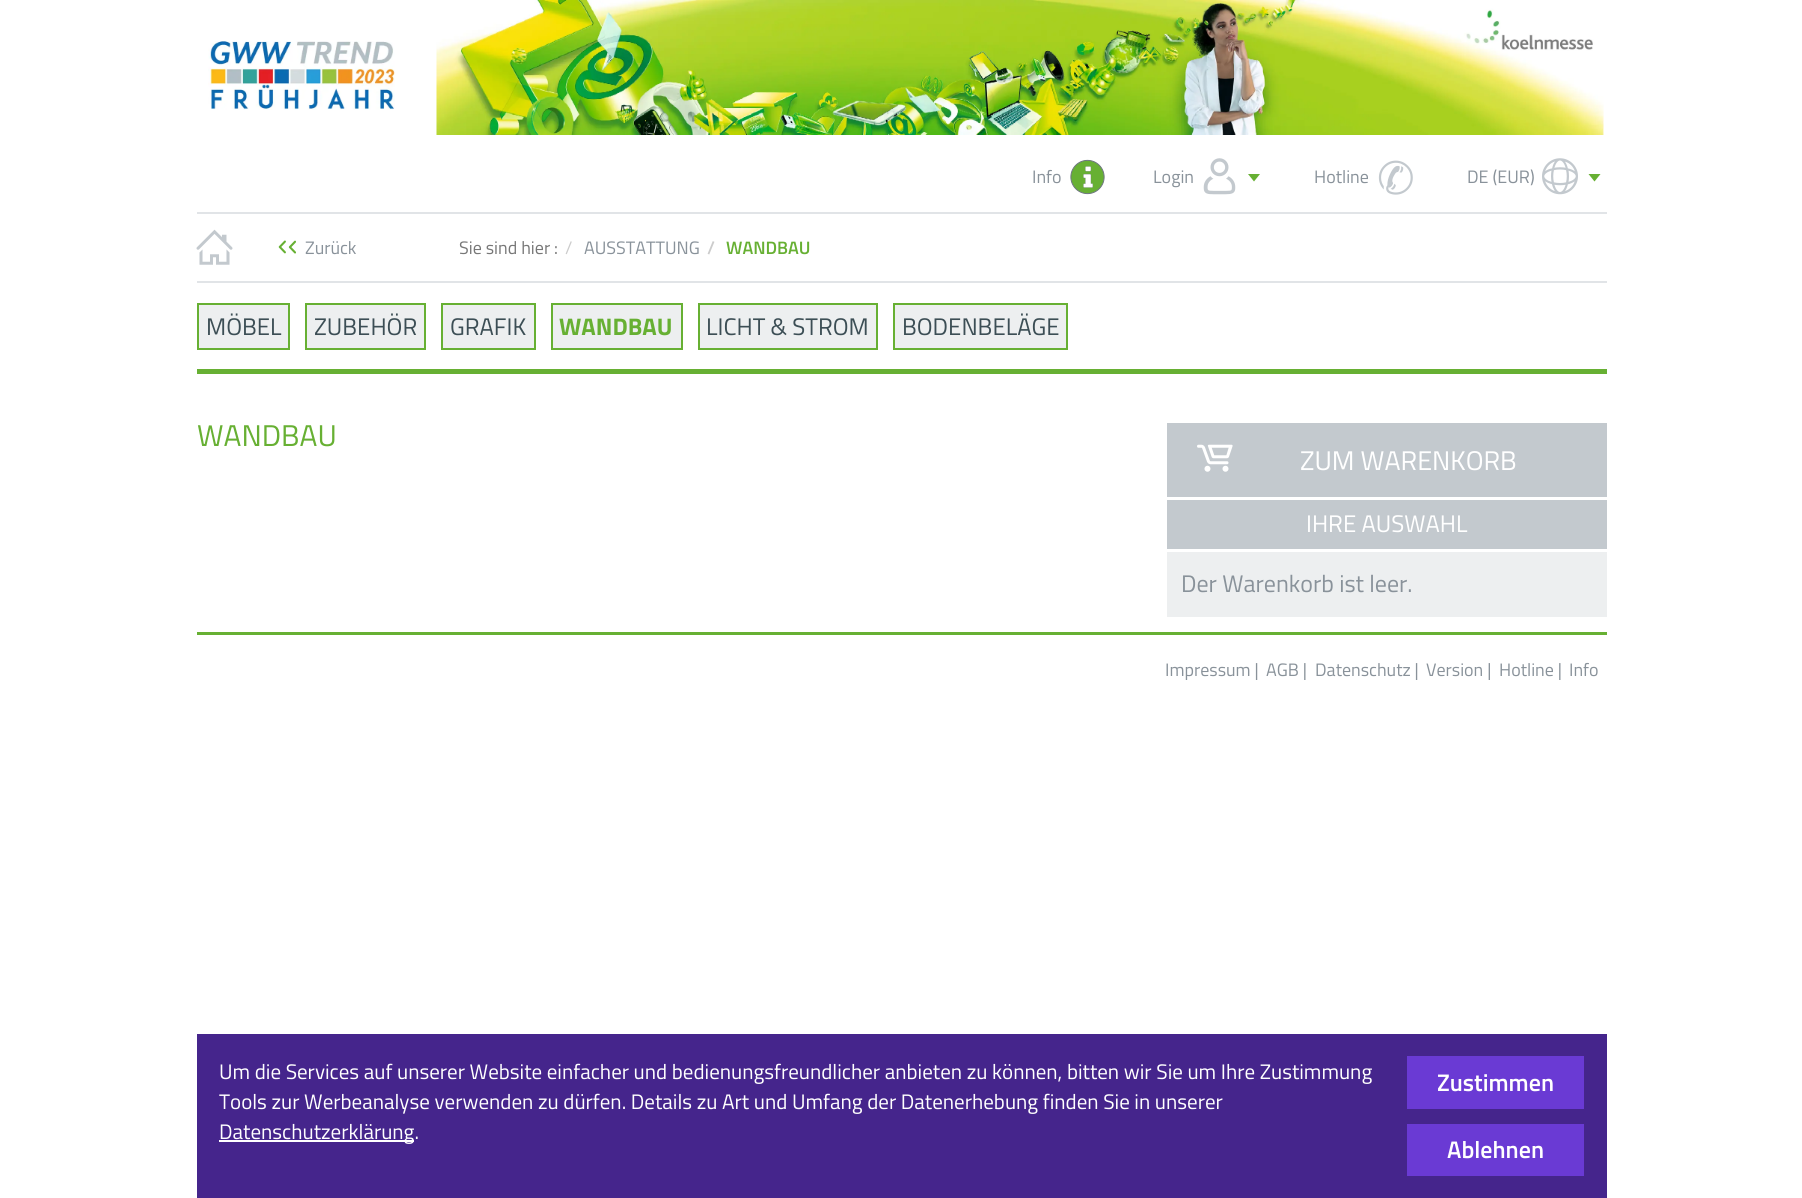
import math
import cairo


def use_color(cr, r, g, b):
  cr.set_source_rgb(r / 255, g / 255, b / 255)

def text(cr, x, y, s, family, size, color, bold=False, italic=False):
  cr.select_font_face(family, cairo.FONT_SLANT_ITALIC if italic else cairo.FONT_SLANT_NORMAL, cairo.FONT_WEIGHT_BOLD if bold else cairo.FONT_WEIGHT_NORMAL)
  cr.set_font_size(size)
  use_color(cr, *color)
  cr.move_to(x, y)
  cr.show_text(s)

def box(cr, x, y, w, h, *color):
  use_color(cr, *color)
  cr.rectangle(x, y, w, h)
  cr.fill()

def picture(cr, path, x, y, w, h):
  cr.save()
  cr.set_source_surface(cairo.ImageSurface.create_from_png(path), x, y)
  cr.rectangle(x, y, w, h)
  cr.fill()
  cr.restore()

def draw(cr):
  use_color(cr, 255, 255, 255)
  cr.paint()
  picture(cr, "img_01.png", 208, 41, 187, 69)
  picture(cr, "img_02.png", 436, 0, 1168, 135)
  box(cr, 197, 212, 1410, 2, 225, 228, 231)
  picture(cr, "img_03.png", 1070, 159, 35, 36)
  picture(cr, "img_04.png", 1203, 158, 33, 37)
  use_color(cr, 103, 176, 51)
  cr.new_path()
  cr.move_to(1260, 174)
  cr.line_to(1254, 181.5)
  cr.line_to(1248, 174)
  cr.close_path()
  cr.fill()
  picture(cr, "img_05.png", 1542, 158, 36, 37)
  cr.new_path()
  cr.move_to(1600.5, 174)
  cr.line_to(1594.5, 181.5)
  cr.line_to(1588.5, 174)
  cr.close_path()
  cr.fill()
  box(cr, 197, 281, 1410, 2, 225, 228, 231)
  picture(cr, "img_06.png", 196, 229, 37, 36)
  picture(cr, "img_07.png", 278, 240, 18, 14)
  box(cr, 197, 369, 1410, 5, 103, 176, 51)
  use_color(cr, 237, 239, 240)
  cr.rectangle(198, 304, 91, 45)
  cr.fill_preserve()
  use_color(cr, 103, 176, 51)
  cr.stroke()
  use_color(cr, 237, 239, 240)
  cr.rectangle(306, 304, 119, 45)
  cr.fill_preserve()
  use_color(cr, 103, 176, 51)
  cr.stroke()
  use_color(cr, 237, 239, 240)
  cr.rectangle(442, 304, 93, 45)
  cr.fill_preserve()
  use_color(cr, 103, 176, 51)
  cr.stroke()
  use_color(cr, 237, 239, 240)
  cr.rectangle(552, 304, 130, 45)
  cr.fill_preserve()
  use_color(cr, 103, 176, 51)
  cr.stroke()
  use_color(cr, 237, 239, 240)
  cr.rectangle(699, 304, 178, 45)
  cr.fill_preserve()
  use_color(cr, 103, 176, 51)
  cr.stroke()
  use_color(cr, 237, 239, 240)
  cr.rectangle(894, 304, 173, 45)
  cr.fill_preserve()
  use_color(cr, 103, 176, 51)
  cr.stroke()
  box(cr, 1167, 423, 440, 74, 195, 201, 206)
  picture(cr, "img_08.png", 1197, 444, 36, 28)
  box(cr, 1167, 500, 440, 49, 195, 201, 206)
  box(cr, 1167, 552, 440, 65, 237, 239, 240)
  box(cr, 197, 632, 1410, 3, 103, 176, 51)
  box(cr, 197, 1034, 1410, 164, 69, 37, 140)
  box(cr, 219, 1140, 195, 2, 255, 255, 255)
  box(cr, 1407, 1056, 177, 53, 106, 58, 212)
  box(cr, 1407, 1124, 177, 52, 106, 58, 212)
  text(cr, 1032, 183, "Info", "Titillium Web", 18, (137, 146, 154))
  text(cr, 1153, 183, "Login", "Titillium Web", 18, (137, 146, 154))
  text(cr, 1314, 183, "Hotline", "Titillium Web", 18, (137, 146, 154))
  text(cr, 1377, 194, "✆", "DejaVu Sans", 45, (195, 201, 206))
  text(cr, 1467, 183, "DE (EUR)", "Titillium Web", 18, (137, 146, 154))
  text(cr, 305, 254, "Zurück", "Titillium Web", 18, (137, 146, 154))
  text(cr, 459, 254, "Sie sind hier :", "Titillium Web", 18, (119, 119, 119))
  text(cr, 565, 254, "/", "Titillium Web", 18, (204, 204, 204))
  text(cr, 584, 254, "AUSSTATTUNG", "Titillium Web", 18, (137, 146, 154))
  text(cr, 707, 254, "/", "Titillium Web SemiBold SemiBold", 18, (204, 204, 204))
  text(cr, 726, 254, "WANDBAU", "Titillium Web SemiBold SemiBold", 18, (103, 176, 51))
  text(cr, 206, 335, "MÖBEL", "Titillium Web", 24, (60, 78, 85))
  text(cr, 314, 335, "ZUBEHÖR", "Titillium Web", 24, (60, 78, 85))
  text(cr, 450, 335, "GRAFIK", "Titillium Web", 24, (60, 78, 85))
  text(cr, 559, 335, "WANDBAU", "Titillium Web", 24, (103, 176, 51), bold=True)
  text(cr, 706, 335, "LICHT & STROM", "Titillium Web", 24, (60, 78, 85))
  text(cr, 902, 335, "BODENBELÄGE", "Titillium Web", 24, (60, 78, 85))
  text(cr, 197, 446, "WANDBAU", "Titillium Web", 30, (103, 176, 51))
  text(cr, 1300, 470, "ZUM WARENKORB", "Titillium Web", 27, (255, 255, 255))
  text(cr, 1306, 532, "IHRE AUSWAHL", "Titillium Web", 24, (255, 255, 255))
  text(cr, 1181, 592, "Der Warenkorb ist leer.", "Titillium Web", 24, (137, 146, 154))
  text(cr, 1165, 676, "Impressum |", "Titillium Web", 18, (137, 146, 154))
  text(cr, 1266, 676, "AGB |", "Titillium Web", 18, (137, 146, 154))
  text(cr, 1315, 676, "Datenschutz |", "Titillium Web", 18, (137, 146, 154))
  text(cr, 1426, 676, "Version |", "Titillium Web", 18, (137, 146, 154))
  text(cr, 1499, 676, "Hotline |", "Titillium Web", 18, (137, 146, 154))
  text(cr, 1569, 676, "Info", "Titillium Web", 18, (137, 146, 154))
  text(cr, 219, 1079, "Um die Services auf unserer Website einfacher und bedienungsfreundlicher anbieten zu können, bitten wir Sie um Ihre Zustimmung", "Titillium Web", 21, (255, 255, 255))
  text(cr, 219, 1109, "Tools zur Werbeanalyse verwenden zu dürfen. Details zu Art und Umfang der Datenerhebung finden Sie in unserer", "Titillium Web", 21, (255, 255, 255))
  text(cr, 219, 1139, "Datenschutzerklärung.", "Titillium Web", 21, (255, 255, 255))
  text(cr, 1437, 1091, "Zustimmen", "Titillium Web SemiBold SemiBold", 24, (255, 255, 255))
  text(cr, 1447, 1158, "Ablehnen", "Titillium Web SemiBold SemiBold", 24, (255, 255, 255))


surface = cairo.ImageSurface(cairo.FORMAT_RGB24, 1802, 1198)
cr = cairo.Context(surface)
options = cairo.FontOptions()
options.set_hint_metrics(cairo.HINT_METRICS_OFF)
options.set_hint_style(cairo.HINT_STYLE_NONE)
cr.set_font_options(options)
cr.set_miter_limit(4)
draw(cr)
surface.write_to_png("out.png")
